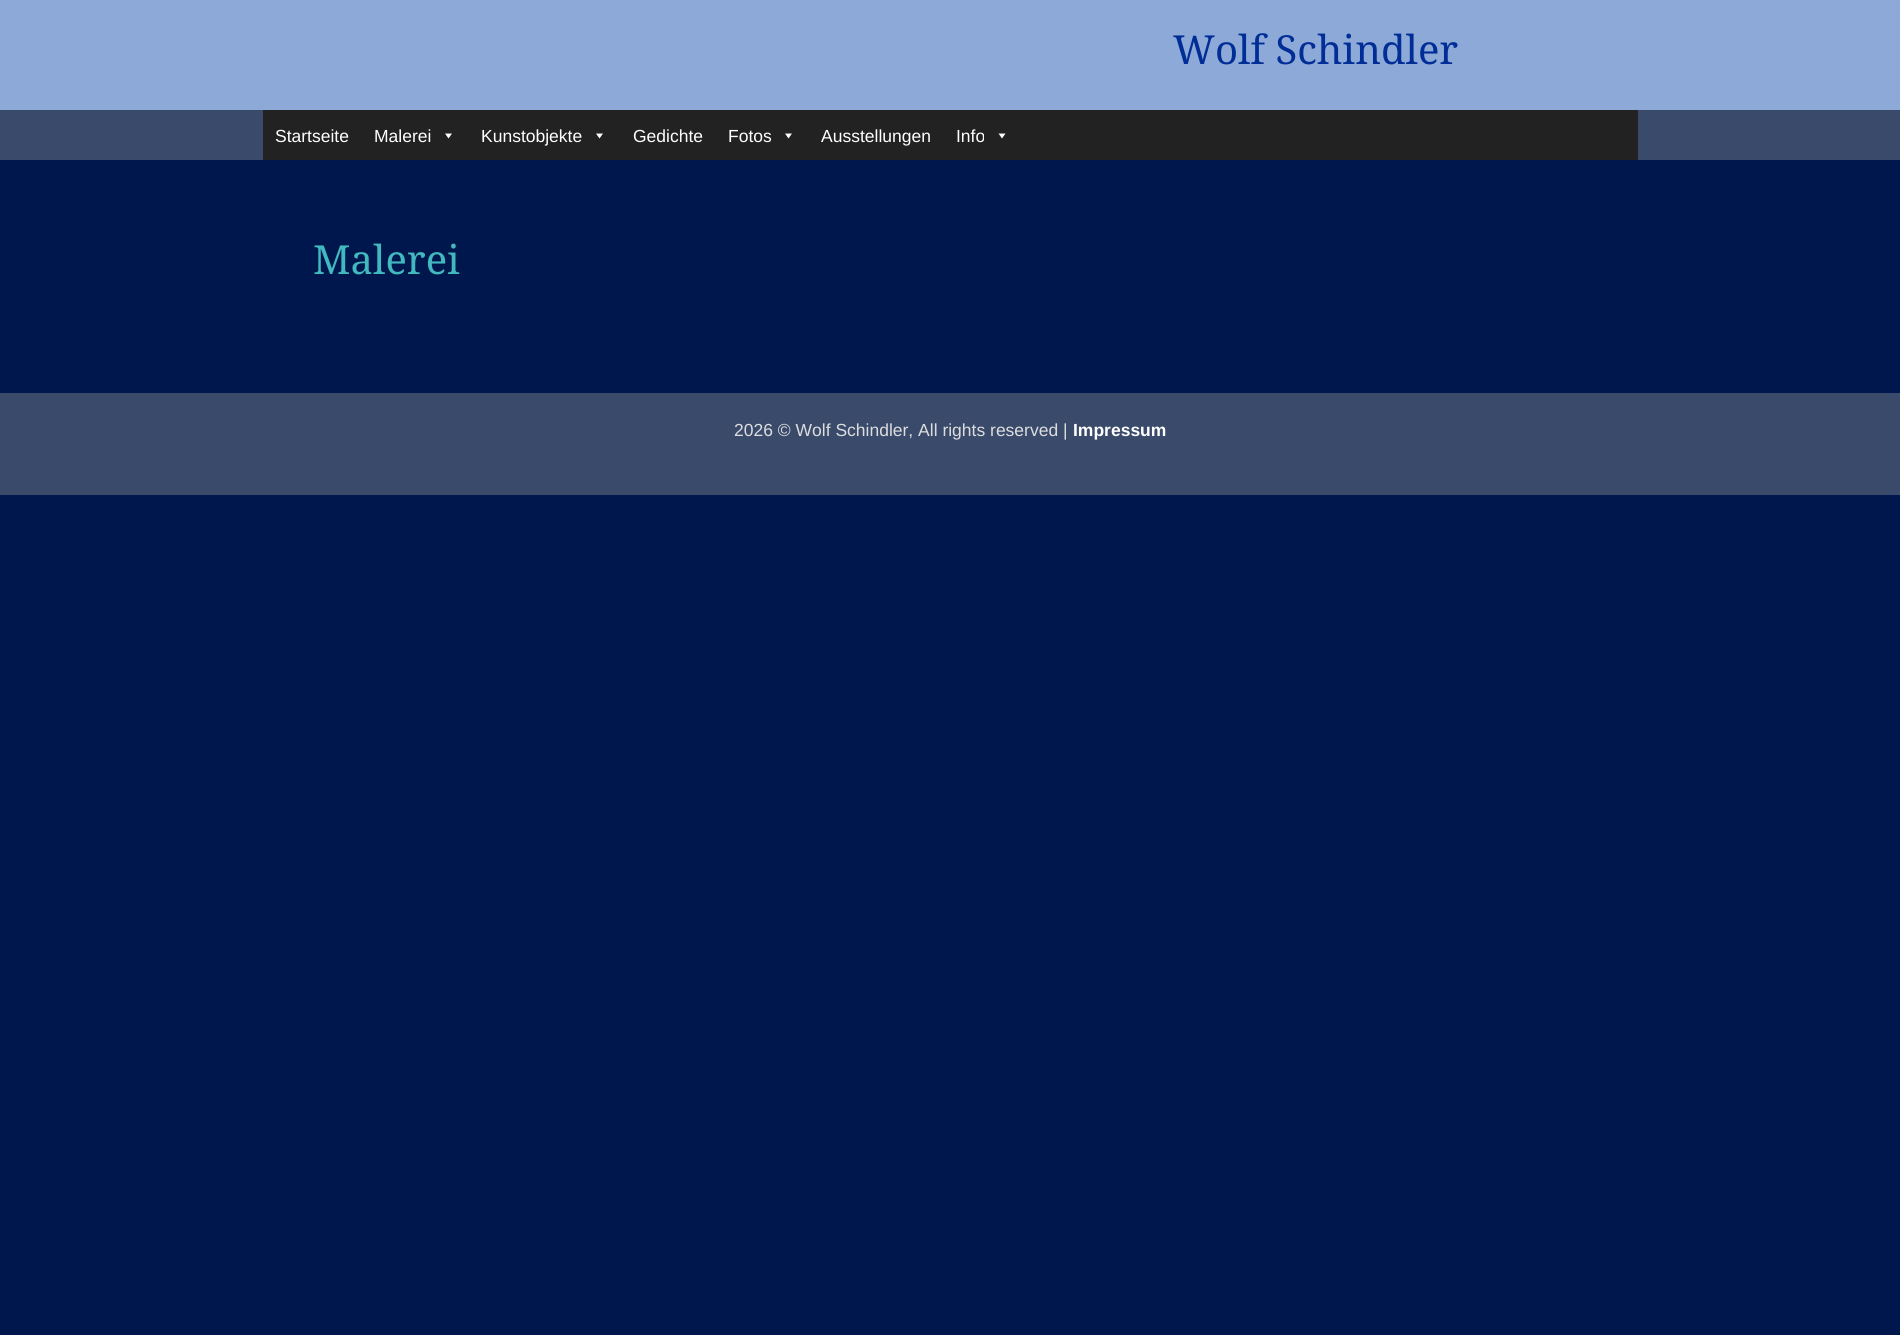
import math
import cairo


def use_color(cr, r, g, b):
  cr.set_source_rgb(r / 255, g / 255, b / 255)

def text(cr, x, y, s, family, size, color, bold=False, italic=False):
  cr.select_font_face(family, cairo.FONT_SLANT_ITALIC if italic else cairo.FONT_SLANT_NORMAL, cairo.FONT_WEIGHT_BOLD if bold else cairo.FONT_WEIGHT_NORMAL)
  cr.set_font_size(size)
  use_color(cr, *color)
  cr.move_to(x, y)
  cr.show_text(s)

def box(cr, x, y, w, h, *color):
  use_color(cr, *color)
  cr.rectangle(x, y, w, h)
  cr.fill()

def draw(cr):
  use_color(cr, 0, 23, 77)
  cr.paint()
  box(cr, 0, 0, 1900, 110, 140, 169, 216)
  box(cr, 0, 110, 1900, 50, 57, 74, 107)
  box(cr, 263, 110, 1375, 50, 34, 34, 34)
  use_color(cr, 255, 255, 255)
  cr.new_path()
  cr.move_to(452, 133.5)
  cr.line_to(448.5, 138.5)
  cr.line_to(445, 133.5)
  cr.close_path()
  cr.fill()
  cr.new_path()
  cr.move_to(603, 133.5)
  cr.line_to(599.5, 138.5)
  cr.line_to(596, 133.5)
  cr.close_path()
  cr.fill()
  cr.new_path()
  cr.move_to(792, 133.5)
  cr.line_to(788.5, 138.5)
  cr.line_to(785, 133.5)
  cr.close_path()
  cr.fill()
  cr.new_path()
  cr.move_to(1005.5, 133.5)
  cr.line_to(1002, 138.5)
  cr.line_to(998.5, 133.5)
  cr.close_path()
  cr.fill()
  box(cr, 0, 393, 1900, 102, 57, 74, 107)
  text(cr, 1173, 64, "Wolf Schindler", "Noto Serif", 40, (0, 45, 150))
  text(cr, 275, 142, "Startseite", "Liberation Sans", 17.5, (255, 255, 255))
  text(cr, 374, 142, "Malerei", "Liberation Sans", 17.5, (255, 255, 255))
  text(cr, 481, 142, "Kunstobjekte", "Liberation Sans", 17.5, (255, 255, 255))
  text(cr, 633, 142, "Gedichte", "Liberation Sans", 17.5, (255, 255, 255))
  text(cr, 728, 142, "Fotos", "Liberation Sans", 17.5, (255, 255, 255))
  text(cr, 821, 142, "Ausstellungen", "Liberation Sans", 17.5, (255, 255, 255))
  text(cr, 956, 142, "Info", "Liberation Sans", 17.5, (255, 255, 255))
  text(cr, 313, 274, "Malerei", "Noto Serif", 40, (66, 185, 191))
  text(cr, 734, 436, "2026 © Wolf Schindler, All rights reserved |", "Liberation Sans", 17.5, (221, 221, 221))
  text(cr, 1073, 436, "Impressum", "Liberation Sans", 17.5, (255, 255, 255), bold=True)


surface = cairo.ImageSurface(cairo.FORMAT_RGB24, 1900, 1335)
cr = cairo.Context(surface)
options = cairo.FontOptions()
options.set_hint_metrics(cairo.HINT_METRICS_OFF)
options.set_hint_style(cairo.HINT_STYLE_NONE)
cr.set_font_options(options)
cr.set_miter_limit(4)
draw(cr)
surface.write_to_png("out.png")
